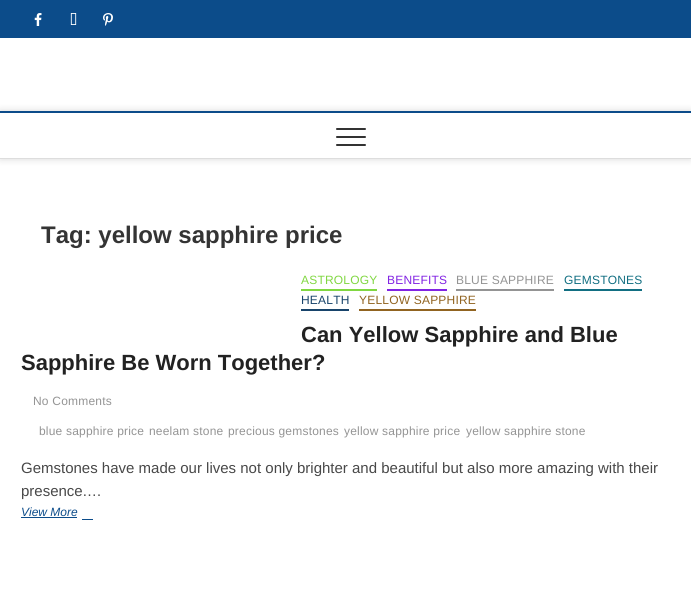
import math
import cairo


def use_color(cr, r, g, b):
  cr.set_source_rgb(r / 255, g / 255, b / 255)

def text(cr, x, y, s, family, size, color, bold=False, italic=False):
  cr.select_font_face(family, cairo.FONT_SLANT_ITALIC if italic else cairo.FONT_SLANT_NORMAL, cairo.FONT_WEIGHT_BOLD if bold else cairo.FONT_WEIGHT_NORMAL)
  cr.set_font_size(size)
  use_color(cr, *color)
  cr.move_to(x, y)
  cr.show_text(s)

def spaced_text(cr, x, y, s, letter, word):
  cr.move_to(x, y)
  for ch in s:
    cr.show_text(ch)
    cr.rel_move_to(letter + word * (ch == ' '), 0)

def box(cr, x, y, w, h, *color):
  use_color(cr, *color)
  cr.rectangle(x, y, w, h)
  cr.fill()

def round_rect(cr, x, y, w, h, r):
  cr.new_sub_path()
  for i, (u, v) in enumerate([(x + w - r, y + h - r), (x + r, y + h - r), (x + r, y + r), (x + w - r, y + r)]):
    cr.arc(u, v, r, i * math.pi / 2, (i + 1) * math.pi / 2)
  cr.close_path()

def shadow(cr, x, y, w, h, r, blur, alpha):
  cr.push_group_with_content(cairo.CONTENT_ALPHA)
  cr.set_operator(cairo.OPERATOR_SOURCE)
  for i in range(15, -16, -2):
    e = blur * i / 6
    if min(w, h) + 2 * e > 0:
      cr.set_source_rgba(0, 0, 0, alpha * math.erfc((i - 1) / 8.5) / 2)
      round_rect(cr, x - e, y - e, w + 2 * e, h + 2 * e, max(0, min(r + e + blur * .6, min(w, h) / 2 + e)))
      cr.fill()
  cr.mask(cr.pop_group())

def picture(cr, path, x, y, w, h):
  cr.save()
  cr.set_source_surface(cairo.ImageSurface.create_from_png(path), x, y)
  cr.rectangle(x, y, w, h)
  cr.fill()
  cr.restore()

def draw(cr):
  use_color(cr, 255, 255, 255)
  cr.paint()
  box(cr, 0, 0, 691, 38, 12, 76, 138)
  picture(cr, "img_01.png", 34, 13, 8, 13)
  picture(cr, "img_02.png", 70, 13, 7, 12)
  picture(cr, "img_03.png", 103, 13, 10, 13)
  cr.save()
  cr.set_fill_rule(cairo.FILL_RULE_EVEN_ODD)
  cr.new_path()
  cr.move_to(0, 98)
  cr.line_to(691, 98)
  cr.line_to(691, 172)
  cr.line_to(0, 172)
  cr.close_path()
  cr.move_to(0, 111)
  cr.line_to(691, 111)
  cr.line_to(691, 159)
  cr.line_to(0, 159)
  cr.close_path()
  cr.clip()
  use_color(cr, 0, 0, 0)
  shadow(cr, 0, 111, 691, 48, 0, 4, 0.15)
  cr.restore()
  box(cr, 0, 111, 691, 2, 12, 76, 138)
  box(cr, 0, 158, 691, 1, 221, 221, 221)
  use_color(cr, 51, 51, 51)
  round_rect(cr, 336, 136, 30, 2, 1)
  cr.fill()
  round_rect(cr, 336, 128, 30, 2, 1)
  cr.fill()
  round_rect(cr, 336, 144, 30, 2, 1)
  cr.fill()
  box(cr, 301, 289, 76, 2, 129, 215, 66)
  box(cr, 387, 289, 60, 2, 130, 36, 227)
  box(cr, 456, 289, 98, 2, 148, 148, 148)
  box(cr, 564, 289, 78, 2, 18, 111, 130)
  box(cr, 301, 309, 48, 2, 24, 68, 107)
  box(cr, 359, 309, 117, 2, 145, 100, 33)
  box(cr, 21, 517, 56, 1, 12, 76, 138)
  box(cr, 82, 519, 11, 1, 12, 76, 138)
  text(cr, 41, 243, "Tag: yellow sapphire price", "Liberation Sans", 24, (52, 52, 52), bold=True)
  cr.select_font_face("Liberation Sans")
  cr.set_font_size(12)
  use_color(cr, 129, 215, 66)
  spaced_text(cr, 301, 284, "ASTROLOGY", 0.2, 0)
  use_color(cr, 130, 36, 227)
  spaced_text(cr, 387, 284, "BENEFITS", 0.2, 0)
  use_color(cr, 148, 148, 148)
  spaced_text(cr, 456, 284, "BLUE SAPPHIRE", 0.2, 0)
  use_color(cr, 18, 111, 130)
  spaced_text(cr, 564, 284, "GEMSTONES", 0.2, 0)
  use_color(cr, 24, 68, 107)
  spaced_text(cr, 301, 304, "HEALTH", 0.2, 0)
  use_color(cr, 145, 100, 33)
  spaced_text(cr, 359, 304, "YELLOW SAPPHIRE", 0.2, 0)
  text(cr, 301, 342, "Can Yellow Sapphire and Blue", "Liberation Sans", 22, (34, 34, 34), bold=True)
  text(cr, 21, 370, "Sapphire Be Worn Together?", "Liberation Sans", 22, (34, 34, 34), bold=True)
  cr.select_font_face("Liberation Sans")
  cr.set_font_size(12)
  use_color(cr, 148, 148, 148)
  spaced_text(cr, 33, 405, "No Comments", 0.2, 0)
  spaced_text(cr, 39, 435, "blue sapphire price", 0.2, 0)
  spaced_text(cr, 149, 435, "neelam stone", 0.2, 0)
  spaced_text(cr, 228, 435, "precious gemstones", 0.2, 0)
  spaced_text(cr, 344, 435, "yellow sapphire price", 0.2, 0)
  spaced_text(cr, 466, 435, "yellow sapphire stone", 0.2, 0)
  text(cr, 21, 473, "Gemstones have made our lives not only brighter and beautiful but also more amazing with their", "Liberation Sans", 15, (72, 72, 72))
  text(cr, 21, 496, "presence.…", "Liberation Sans", 15, (72, 72, 72))
  text(cr, 21, 516, "View More", "Liberation Sans", 12, (12, 76, 138), italic=True)


surface = cairo.ImageSurface(cairo.FORMAT_RGB24, 691, 598)
cr = cairo.Context(surface)
options = cairo.FontOptions()
options.set_hint_metrics(cairo.HINT_METRICS_OFF)
options.set_hint_style(cairo.HINT_STYLE_NONE)
cr.set_font_options(options)
cr.set_miter_limit(4)
draw(cr)
surface.write_to_png("out.png")
